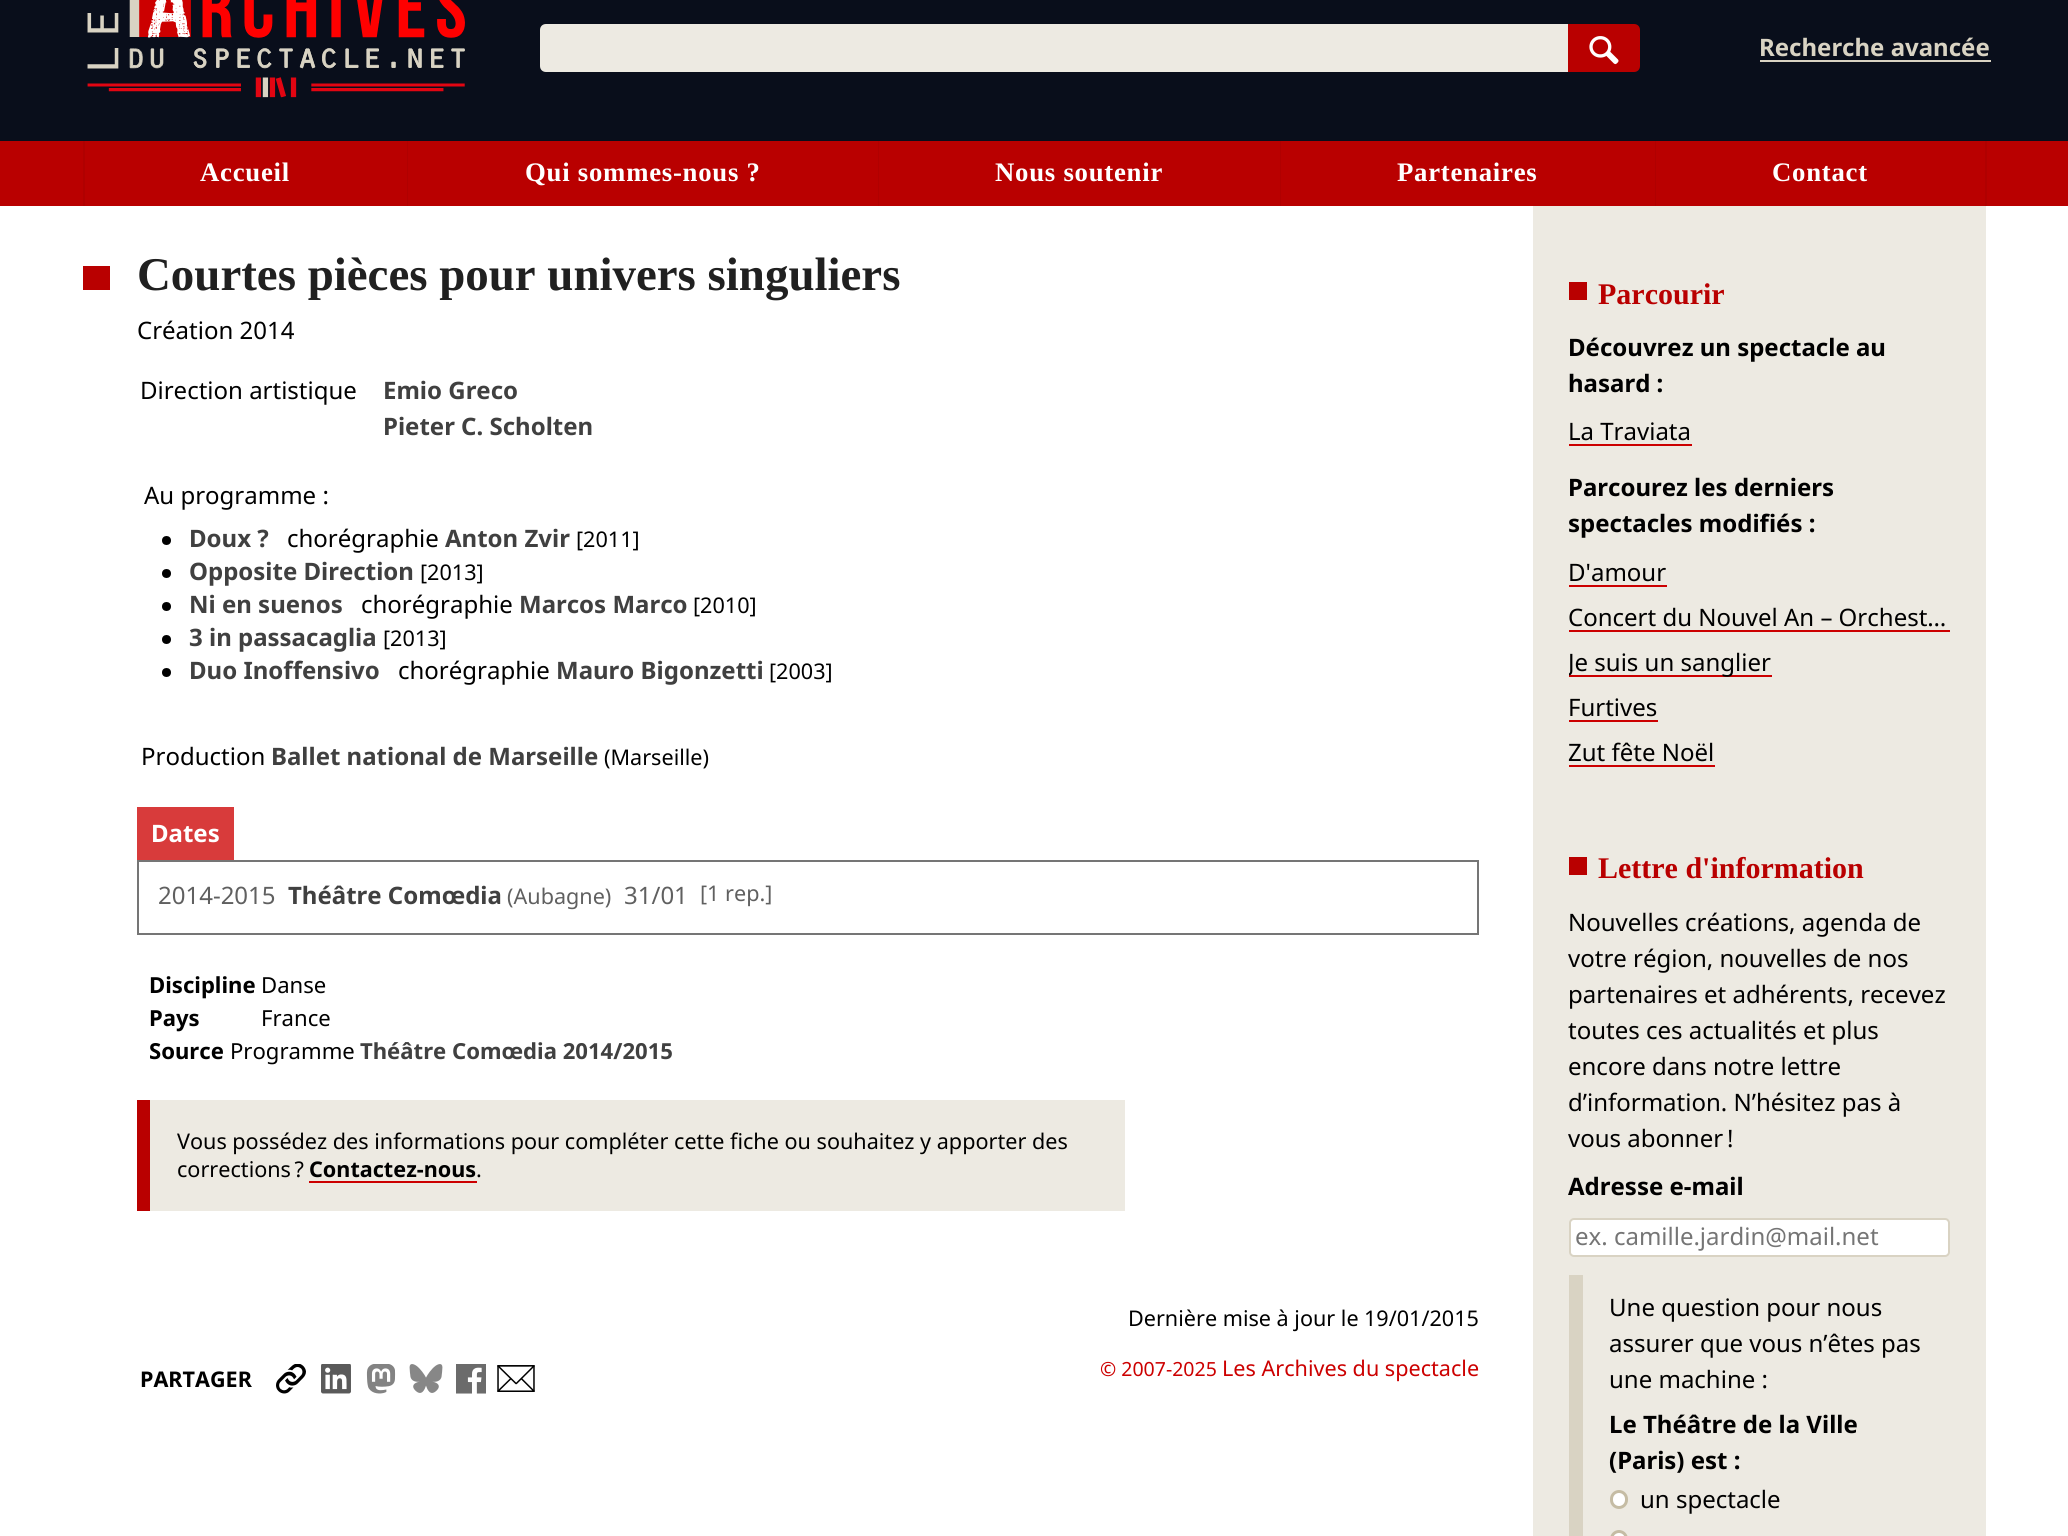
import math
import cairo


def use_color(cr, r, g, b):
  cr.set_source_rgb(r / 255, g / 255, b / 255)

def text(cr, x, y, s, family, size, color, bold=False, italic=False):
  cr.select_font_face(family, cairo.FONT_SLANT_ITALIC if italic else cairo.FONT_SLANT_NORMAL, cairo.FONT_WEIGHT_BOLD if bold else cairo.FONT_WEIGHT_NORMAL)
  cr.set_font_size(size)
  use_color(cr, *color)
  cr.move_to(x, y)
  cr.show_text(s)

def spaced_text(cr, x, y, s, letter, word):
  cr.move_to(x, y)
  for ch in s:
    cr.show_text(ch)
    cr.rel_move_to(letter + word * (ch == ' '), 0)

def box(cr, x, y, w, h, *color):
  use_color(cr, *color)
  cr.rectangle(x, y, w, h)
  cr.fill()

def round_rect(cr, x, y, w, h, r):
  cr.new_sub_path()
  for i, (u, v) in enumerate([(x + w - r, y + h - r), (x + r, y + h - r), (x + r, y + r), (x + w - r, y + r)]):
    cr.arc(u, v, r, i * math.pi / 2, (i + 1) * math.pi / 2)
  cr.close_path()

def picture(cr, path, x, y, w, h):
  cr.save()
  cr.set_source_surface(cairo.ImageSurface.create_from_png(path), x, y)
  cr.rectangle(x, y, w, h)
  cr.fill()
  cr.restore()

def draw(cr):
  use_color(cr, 255, 255, 255)
  cr.paint()
  box(cr, 0, 0, 2068, 141, 9, 14, 27)
  picture(cr, "img_01.png", 87, 0, 378, 98)
  use_color(cr, 237, 234, 226)
  cr.new_path()
  cr.move_to(546, 24)
  cr.line_to(1568, 24)
  cr.line_to(1568, 72)
  cr.line_to(546, 72)
  cr.curve_to(542.5, 72, 540, 69.5, 540, 66)
  cr.line_to(540, 30)
  cr.curve_to(540, 26.5, 542.5, 24, 546, 24)
  cr.close_path()
  cr.fill()
  use_color(cr, 185, 0, 0)
  cr.new_path()
  cr.move_to(1568, 24)
  cr.line_to(1634, 24)
  cr.curve_to(1637.5, 24, 1640, 26.5, 1640, 30)
  cr.line_to(1640, 66)
  cr.curve_to(1640, 69.5, 1637.5, 72, 1634, 72)
  cr.line_to(1568, 72)
  cr.close_path()
  cr.fill()
  picture(cr, "img_02.png", 1589, 36, 30, 29)
  box(cr, 1760, 60, 231, 2, 217, 211, 195)
  box(cr, 0, 141, 2068, 65, 185, 0, 0)
  box(cr, 407, 141, 1, 65, 176, 0, 0)
  box(cr, 83, 141, 2, 65, 176, 0, 0)
  box(cr, 878, 141, 1, 65, 176, 0, 0)
  box(cr, 1280, 141, 1, 65, 176, 0, 0)
  box(cr, 1655, 141, 1, 65, 176, 0, 0)
  box(cr, 1985, 141, 2, 65, 176, 0, 0)
  box(cr, 83, 266, 27, 24, 185, 0, 0)
  use_color(cr, 0, 0, 0)
  cr.arc(166.5, 540.5, 4.5, 0, 2 * math.pi)
  cr.fill()
  cr.arc(166.5, 573.5, 4.5, 0, 2 * math.pi)
  cr.fill()
  cr.arc(166.5, 606.5, 4.5, 0, 2 * math.pi)
  cr.fill()
  cr.arc(166.5, 639.5, 4.5, 0, 2 * math.pi)
  cr.fill()
  cr.arc(166.5, 672.5, 4.5, 0, 2 * math.pi)
  cr.fill()
  box(cr, 137, 807, 97, 53, 216, 59, 59)
  cr.rectangle(138, 861, 1340, 73)
  use_color(cr, 117, 117, 117)
  cr.stroke()
  box(cr, 150, 1100, 975, 111, 237, 234, 226)
  box(cr, 137, 1100, 13, 111, 185, 0, 0)
  box(cr, 309, 1181, 168, 2, 204, 0, 0)
  picture(cr, "img_03.png", 276, 1364, 30, 30)
  picture(cr, "img_04.png", 321, 1364, 30, 30)
  picture(cr, "img_05.png", 366, 1364, 30, 30)
  picture(cr, "img_06.png", 409, 1364, 34, 29)
  picture(cr, "img_07.png", 456, 1364, 30, 30)
  picture(cr, "img_08.png", 497, 1365, 38, 27)
  box(cr, 1533, 206, 453, 1330, 237, 234, 226)
  box(cr, 1569, 282, 18, 18, 185, 0, 0)
  box(cr, 1569, 444, 123, 2, 204, 0, 0)
  box(cr, 1569, 585, 98, 2, 204, 0, 0)
  box(cr, 1569, 630, 381, 2, 204, 0, 0)
  box(cr, 1569, 675, 203, 2, 204, 0, 0)
  box(cr, 1569, 720, 89, 2, 204, 0, 0)
  box(cr, 1569, 765, 146, 2, 204, 0, 0)
  box(cr, 1569, 857, 18, 18, 185, 0, 0)
  use_color(cr, 255, 255, 255)
  round_rect(cr, 1570, 1219, 379, 37, 4)
  cr.fill_preserve()
  use_color(cr, 217, 211, 195)
  cr.stroke()
  box(cr, 1569, 1275, 14, 261, 217, 211, 195)
  use_color(cr, 255, 255, 255)
  round_rect(cr, 1611.5, 1491.5, 15, 16, 7.5)
  cr.fill_preserve()
  use_color(cr, 197, 188, 164)
  cr.set_line_width(3)
  cr.stroke()
  use_color(cr, 255, 255, 255)
  cr.arc(1619, 1539, 7.5, 0, 2 * math.pi)
  cr.fill_preserve()
  use_color(cr, 197, 188, 164)
  cr.stroke()
  text(cr, 1759, 56, "Recherche avancée", "Noto Sans", 24, (217, 211, 195), bold=True)
  cr.select_font_face("Liberation Serif", cairo.FONT_SLANT_NORMAL, cairo.FONT_WEIGHT_BOLD)
  cr.set_font_size(26.75)
  use_color(cr, 255, 255, 255)
  spaced_text(cr, 200, 181, "Accueil", 0.75, 0)
  spaced_text(cr, 525, 181, "Qui sommes-nous ?", 0.75, 0)
  spaced_text(cr, 995, 181, "Nous soutenir", 0.75, 0)
  spaced_text(cr, 1397, 181, "Partenaires", 0.75, 0)
  spaced_text(cr, 1772, 181, "Contact", 0.75, 0)
  text(cr, 137, 290, "Courtes pièces pour univers singuliers", "Liberation Serif", 46.9, (32, 32, 32), bold=True)
  text(cr, 137, 339, "Création 2014", "Noto Sans", 24, (0, 0, 0))
  text(cr, 140, 399, "Direction artistique", "Noto Sans", 24, (0, 0, 0))
  text(cr, 383, 399, "Emio Greco", "Noto Sans", 24, (64, 64, 64), bold=True)
  text(cr, 383, 435, "Pieter C. Scholten", "Noto Sans", 24, (64, 64, 64), bold=True)
  text(cr, 144, 504, "Au programme :", "Noto Sans", 24, (0, 0, 0))
  text(cr, 189, 547, "Doux ?", "Noto Sans", 24, (64, 64, 64), bold=True)
  text(cr, 287, 547, "chorégraphie", "Noto Sans", 24, (0, 0, 0))
  text(cr, 445, 547, "Anton Zvir", "Noto Sans", 24, (64, 64, 64), bold=True)
  text(cr, 576, 547, "[2011]", "Noto Sans", 21.6, (0, 0, 0))
  text(cr, 189, 580, "Opposite Direction", "Noto Sans", 24, (64, 64, 64), bold=True)
  text(cr, 420, 580, "[2013]", "Noto Sans", 21.6, (0, 0, 0))
  text(cr, 189, 613, "Ni en suenos", "Noto Sans", 24, (64, 64, 64), bold=True)
  text(cr, 361, 613, "chorégraphie", "Noto Sans", 24, (0, 0, 0))
  text(cr, 519, 613, "Marcos Marco", "Noto Sans", 24, (64, 64, 64), bold=True)
  text(cr, 693, 613, "[2010]", "Noto Sans", 21.6, (0, 0, 0))
  text(cr, 189, 646, "3 in passacaglia", "Noto Sans", 24, (64, 64, 64), bold=True)
  text(cr, 383, 646, "[2013]", "Noto Sans", 21.6, (0, 0, 0))
  text(cr, 189, 679, "Duo Inoffensivo", "Noto Sans", 24, (64, 64, 64), bold=True)
  text(cr, 398, 679, "chorégraphie", "Noto Sans", 24, (0, 0, 0))
  text(cr, 556, 679, "Mauro Bigonzetti", "Noto Sans", 24, (64, 64, 64), bold=True)
  text(cr, 769, 679, "[2003]", "Noto Sans", 21.6, (0, 0, 0))
  text(cr, 141, 765, "Production", "Noto Sans", 24, (0, 0, 0))
  text(cr, 271, 765, "Ballet national de Marseille", "Noto Sans", 24, (64, 64, 64), bold=True)
  text(cr, 604, 765, "(Marseille)", "Noto Sans", 21.6, (0, 0, 0))
  text(cr, 151, 842, "Dates", "Noto Sans", 24, (255, 255, 255), bold=True)
  text(cr, 158, 904, "2014-2015", "Noto Sans", 24, (96, 96, 96))
  text(cr, 288, 904, "Théâtre Comœdia", "Noto Sans", 24, (64, 64, 64), bold=True)
  text(cr, 507, 904, "(Aubagne)", "Noto Sans", 21.6, (96, 96, 96))
  text(cr, 624, 904, "31/01", "Noto Sans", 24, (96, 96, 96))
  text(cr, 700, 901, "[1 rep.]", "Noto Sans", 21.6, (96, 96, 96))
  text(cr, 149, 993, "Discipline", "Noto Sans", 22.1, (0, 0, 0), bold=True)
  text(cr, 261, 993, "Danse", "Noto Sans", 22.1, (0, 0, 0))
  text(cr, 149, 1026, "Pays", "Noto Sans", 22.1, (0, 0, 0), bold=True)
  text(cr, 261, 1026, "France", "Noto Sans", 22.1, (0, 0, 0))
  text(cr, 149, 1059, "Source", "Noto Sans", 22.1, (0, 0, 0), bold=True)
  text(cr, 230, 1059, "Programme", "Noto Sans", 22.1, (0, 0, 0))
  text(cr, 360, 1059, "Théâtre Comœdia 2014/2015", "Noto Sans", 22.1, (64, 64, 64), bold=True)
  text(cr, 177, 1149, "Vous possédez des informations pour compléter cette fiche ou souhaitez y apporter des", "Noto Sans", 21.6, (0, 0, 0))
  text(cr, 177, 1177, "corrections ?", "Noto Sans", 21.6, (0, 0, 0))
  text(cr, 309, 1177, "Contactez-nous", "Noto Sans", 21.6, (0, 0, 0), bold=True)
  text(cr, 476, 1177, ".", "Noto Sans", 21.6, (0, 0, 0))
  text(cr, 140, 1387, "PARTAGER", "Noto Sans", 21.6, (0, 0, 0), bold=True)
  text(cr, 1128, 1326, "Dernière mise à jour le", "Noto Sans", 21.6, (0, 0, 0))
  text(cr, 1364, 1326, "19/01/2015", "Noto Sans", 21.6, (0, 0, 0))
  text(cr, 1100, 1376, "© 2007-2025", "Noto Sans", 19.5, (204, 0, 0))
  text(cr, 1222, 1376, "Les Archives du spectacle", "Noto Sans", 21.6, (204, 0, 0))
  text(cr, 1598, 304, "Parcourir", "Liberation Serif", 30, (185, 0, 0), bold=True)
  text(cr, 1568, 356, "Découvrez un spectacle au", "Noto Sans", 24, (0, 0, 0), bold=True)
  text(cr, 1568, 392, "hasard :", "Noto Sans", 24, (0, 0, 0), bold=True)
  text(cr, 1568, 440, "La Traviata", "Noto Sans", 24, (0, 0, 0))
  text(cr, 1568, 496, "Parcourez les derniers", "Noto Sans", 24, (0, 0, 0), bold=True)
  text(cr, 1568, 532, "spectacles modifiés :", "Noto Sans", 24, (0, 0, 0), bold=True)
  text(cr, 1568, 581, "D'amour", "Noto Sans", 24, (0, 0, 0))
  text(cr, 1568, 626, "Concert du Nouvel An – Orchest…", "Noto Sans", 24, (0, 0, 0))
  cr.save()
  cr.rectangle(1569, 645, 203, 36)
  cr.clip()
  text(cr, 1568, 671, "Je suis un sanglier", "Noto Sans", 24, (0, 0, 0))
  cr.restore()
  text(cr, 1568, 716, "Furtives", "Noto Sans", 24, (0, 0, 0))
  text(cr, 1568, 761, "Zut fête Noël", "Noto Sans", 24, (0, 0, 0))
  text(cr, 1598, 878, "Lettre d'information", "Liberation Serif", 30, (185, 0, 0), bold=True)
  text(cr, 1568, 931, "Nouvelles créations, agenda de", "Noto Sans", 24, (0, 0, 0))
  text(cr, 1568, 967, "votre région, nouvelles de nos", "Noto Sans", 24, (0, 0, 0))
  text(cr, 1568, 1003, "partenaires et adhérents, recevez", "Noto Sans", 24, (0, 0, 0))
  text(cr, 1568, 1039, "toutes ces actualités et plus", "Noto Sans", 24, (0, 0, 0))
  text(cr, 1568, 1075, "encore dans notre lettre", "Noto Sans", 24, (0, 0, 0))
  text(cr, 1568, 1111, "d’information. N’hésitez pas à", "Noto Sans", 24, (0, 0, 0))
  text(cr, 1568, 1147, "vous abonner !", "Noto Sans", 24, (0, 0, 0))
  text(cr, 1568, 1195, "Adresse e-mail", "Noto Sans", 24, (0, 0, 0), bold=True)
  text(cr, 1575, 1245, "ex. camille.jardin@mail.net", "Noto Sans", 24, (117, 117, 117))
  text(cr, 1609, 1316, "Une question pour nous", "Noto Sans", 24, (0, 0, 0))
  text(cr, 1609, 1352, "assurer que vous n’êtes pas", "Noto Sans", 24, (0, 0, 0))
  text(cr, 1609, 1388, "une machine :", "Noto Sans", 24, (0, 0, 0))
  text(cr, 1609, 1433, "Le Théâtre de la Ville", "Noto Sans", 24, (0, 0, 0), bold=True)
  text(cr, 1609, 1469, "(Paris) est :", "Noto Sans", 24, (0, 0, 0), bold=True)
  text(cr, 1640, 1508, "un spectacle", "Noto Sans", 24, (0, 0, 0))


surface = cairo.ImageSurface(cairo.FORMAT_RGB24, 2068, 1536)
cr = cairo.Context(surface)
options = cairo.FontOptions()
options.set_hint_metrics(cairo.HINT_METRICS_OFF)
options.set_hint_style(cairo.HINT_STYLE_NONE)
cr.set_font_options(options)
cr.set_miter_limit(4)
draw(cr)
surface.write_to_png("out.png")
